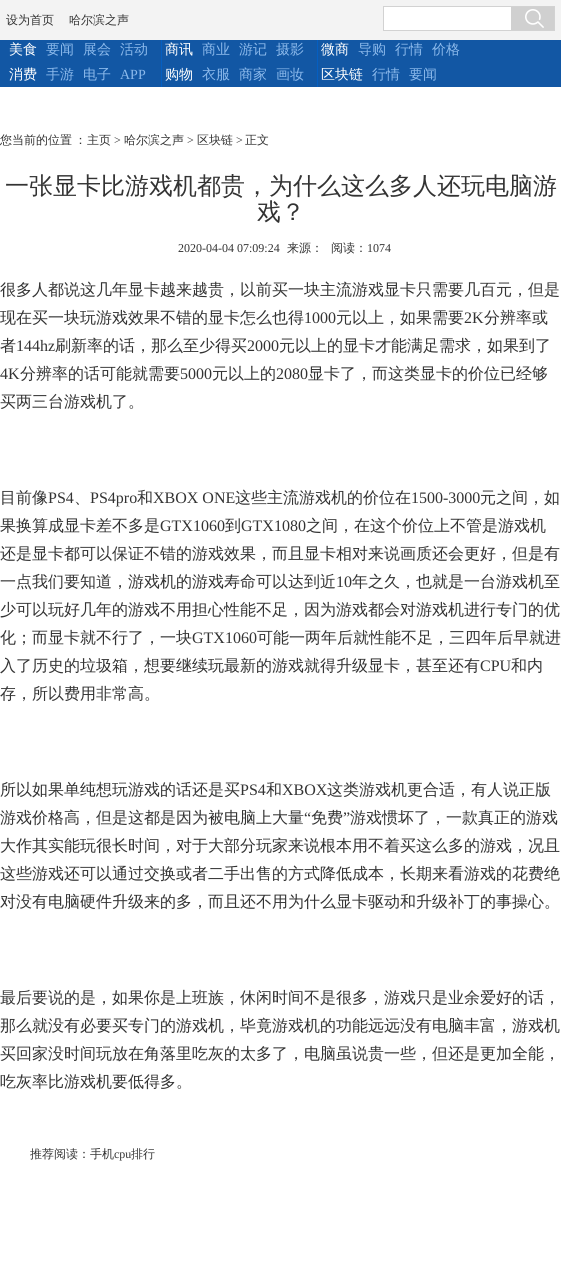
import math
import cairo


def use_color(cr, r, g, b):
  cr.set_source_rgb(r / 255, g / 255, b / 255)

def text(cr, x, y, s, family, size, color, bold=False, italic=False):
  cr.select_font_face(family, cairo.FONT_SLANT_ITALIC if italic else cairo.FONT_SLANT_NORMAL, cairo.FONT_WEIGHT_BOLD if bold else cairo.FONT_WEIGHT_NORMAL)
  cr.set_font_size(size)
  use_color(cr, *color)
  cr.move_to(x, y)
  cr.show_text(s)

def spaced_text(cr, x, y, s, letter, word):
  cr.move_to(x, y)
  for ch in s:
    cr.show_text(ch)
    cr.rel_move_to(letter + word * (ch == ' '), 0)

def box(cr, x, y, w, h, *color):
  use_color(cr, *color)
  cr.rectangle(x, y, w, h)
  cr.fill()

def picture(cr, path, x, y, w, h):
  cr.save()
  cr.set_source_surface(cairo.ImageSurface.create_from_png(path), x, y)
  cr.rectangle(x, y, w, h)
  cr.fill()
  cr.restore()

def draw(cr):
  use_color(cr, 255, 255, 255)
  cr.paint()
  box(cr, 0, 40, 561, 47, 18, 87, 164)
  box(cr, 161, 37, 1, 50, 5, 95, 194)
  box(cr, 317, 37, 1, 50, 5, 95, 194)
  box(cr, 0, 0, 561, 40, 243, 243, 243)
  box(cr, 384, 7, 127, 23, 255, 255, 255)
  cr.rectangle(383.5, 6.5, 171, 24)
  use_color(cr, 210, 210, 210)
  cr.set_line_width(1)
  cr.stroke()
  box(cr, 511, 7, 43, 23, 208, 208, 208)
  picture(cr, "img_01.png", 525, 9, 19, 19)
  text(cr, 6, 24, "设为首页", "WenQuanYi Zen Hei Medium", 12, (51, 51, 51))
  text(cr, 69, 24, "哈尔滨之声", "WenQuanYi Zen Hei Medium", 12, (51, 51, 51))
  text(cr, 9, 54, "美食", "WenQuanYi Zen Hei Medium", 14, (255, 255, 255))
  text(cr, 46, 54, "要闻", "WenQuanYi Zen Hei Medium", 14, (139, 185, 235))
  text(cr, 83, 54, "展会", "WenQuanYi Zen Hei Medium", 14, (139, 185, 235))
  text(cr, 120, 54, "活动", "WenQuanYi Zen Hei Medium", 14, (139, 185, 235))
  text(cr, 9, 79, "消费", "WenQuanYi Zen Hei Medium", 14, (255, 255, 255))
  text(cr, 46, 79, "手游", "WenQuanYi Zen Hei Medium", 14, (139, 185, 235))
  text(cr, 83, 79, "电子", "WenQuanYi Zen Hei Medium", 14, (139, 185, 235))
  text(cr, 120, 79, "APP", "Liberation Serif", 14, (139, 185, 235))
  text(cr, 165, 54, "商讯", "WenQuanYi Zen Hei Medium", 14, (255, 255, 255))
  text(cr, 202, 54, "商业", "WenQuanYi Zen Hei Medium", 14, (139, 185, 235))
  text(cr, 239, 54, "游记", "WenQuanYi Zen Hei Medium", 14, (139, 185, 235))
  text(cr, 276, 54, "摄影", "WenQuanYi Zen Hei Medium", 14, (139, 185, 235))
  text(cr, 165, 79, "购物", "WenQuanYi Zen Hei Medium", 14, (255, 255, 255))
  text(cr, 202, 79, "衣服", "WenQuanYi Zen Hei Medium", 14, (139, 185, 235))
  text(cr, 239, 79, "商家", "WenQuanYi Zen Hei Medium", 14, (139, 185, 235))
  text(cr, 276, 79, "画妆", "WenQuanYi Zen Hei Medium", 14, (139, 185, 235))
  text(cr, 321, 54, "微商", "WenQuanYi Zen Hei Medium", 14, (255, 255, 255))
  text(cr, 358, 54, "导购", "WenQuanYi Zen Hei Medium", 14, (139, 185, 235))
  text(cr, 395, 54, "行情", "WenQuanYi Zen Hei Medium", 14, (139, 185, 235))
  text(cr, 432, 54, "价格", "WenQuanYi Zen Hei Medium", 14, (139, 185, 235))
  text(cr, 321, 79, "区块链", "WenQuanYi Zen Hei Medium", 14, (255, 255, 255))
  text(cr, 372, 79, "行情", "WenQuanYi Zen Hei Medium", 14, (139, 185, 235))
  text(cr, 409, 79, "要闻", "WenQuanYi Zen Hei Medium", 14, (139, 185, 235))
  cr.set_font_size(12)
  use_color(cr, 51, 51, 51)
  spaced_text(cr, 0, 144, "您当前的位置 ：", 0, -1)
  text(cr, 87, 144, "主页", "WenQuanYi Zen Hei Medium", 12, (51, 51, 51))
  text(cr, 114, 144, ">", "Liberation Serif", 12, (51, 51, 51))
  text(cr, 124, 144, "哈尔滨之声", "WenQuanYi Zen Hei Medium", 12, (51, 51, 51))
  text(cr, 187, 144, ">", "Liberation Serif", 12, (51, 51, 51))
  text(cr, 197, 144, "区块链", "WenQuanYi Zen Hei Medium", 12, (51, 51, 51))
  text(cr, 236, 144, ">", "Liberation Serif", 12, (51, 51, 51))
  text(cr, 245, 144, "正文", "WenQuanYi Zen Hei Medium", 12, (51, 51, 51))
  text(cr, 5, 194, "一张显卡比游戏机都贵，为什么这么多人还玩电脑游", "WenQuanYi Zen Hei Medium", 24, (51, 51, 51))
  text(cr, 257, 220, "戏？", "WenQuanYi Zen Hei Medium", 24, (51, 51, 51))
  text(cr, 178, 252, "2020-04-04 07:09:24", "Liberation Serif", 12, (51, 51, 51))
  text(cr, 287, 252, "来源：", "WenQuanYi Zen Hei Medium", 12, (51, 51, 51))
  text(cr, 331, 252, "阅读：", "WenQuanYi Zen Hei Medium", 12, (51, 51, 51))
  text(cr, 367, 252, "1074", "Liberation Serif", 12, (51, 51, 51))
  text(cr, 0, 295, "很多人都说这几年显卡越来越贵，以前买一块主流游戏显卡只需要几百元，但是", "WenQuanYi Zen Hei Medium", 16, (51, 51, 51))
  text(cr, 0, 323, "现在买一块玩游戏效果不错的显卡怎么也得", "WenQuanYi Zen Hei Medium", 16, (51, 51, 51))
  text(cr, 304, 323, "1000", "Liberation Serif", 16, (51, 51, 51))
  text(cr, 336, 323, "元以上，如果需要", "WenQuanYi Zen Hei Medium", 16, (51, 51, 51))
  text(cr, 464, 323, "2K", "Liberation Serif", 16, (51, 51, 51))
  text(cr, 484, 323, "分辨率或", "WenQuanYi Zen Hei Medium", 16, (51, 51, 51))
  text(cr, 0, 351, "者", "WenQuanYi Zen Hei Medium", 16, (51, 51, 51))
  text(cr, 16, 351, "144hz", "Liberation Serif", 16, (51, 51, 51))
  text(cr, 55, 351, "刷新率的话，那么至少得买", "WenQuanYi Zen Hei Medium", 16, (51, 51, 51))
  text(cr, 247, 351, "2000", "Liberation Serif", 16, (51, 51, 51))
  text(cr, 279, 351, "元以上的显卡才能满足需求，如果到了", "WenQuanYi Zen Hei Medium", 16, (51, 51, 51))
  text(cr, 0, 379, "4K", "Liberation Serif", 16, (51, 51, 51))
  text(cr, 20, 379, "分辨率的话可能就需要", "WenQuanYi Zen Hei Medium", 16, (51, 51, 51))
  text(cr, 180, 379, "5000", "Liberation Serif", 16, (51, 51, 51))
  text(cr, 212, 379, "元以上的", "WenQuanYi Zen Hei Medium", 16, (51, 51, 51))
  text(cr, 276, 379, "2080", "Liberation Serif", 16, (51, 51, 51))
  text(cr, 308, 379, "显卡了，而这类显卡的价位已经够", "WenQuanYi Zen Hei Medium", 16, (51, 51, 51))
  text(cr, 0, 407, "买两三台游戏机了。", "WenQuanYi Zen Hei Medium", 16, (51, 51, 51))
  text(cr, 0, 503, "目前像", "WenQuanYi Zen Hei Medium", 16, (51, 51, 51))
  text(cr, 48, 503, "PS4", "Liberation Serif", 16, (51, 51, 51))
  text(cr, 74, 503, "、", "WenQuanYi Zen Hei Medium", 16, (51, 51, 51))
  text(cr, 90, 503, "PS4pro", "Liberation Serif", 16, (51, 51, 51))
  text(cr, 137, 503, "和", "WenQuanYi Zen Hei Medium", 16, (51, 51, 51))
  text(cr, 153, 503, "XBOX ONE", "Liberation Serif", 16, (51, 51, 51))
  text(cr, 235, 503, "这些主流游戏机的价位在", "WenQuanYi Zen Hei Medium", 16, (51, 51, 51))
  text(cr, 411, 503, "1500-3000", "Liberation Serif", 16, (51, 51, 51))
  text(cr, 480, 503, "元之间，如", "WenQuanYi Zen Hei Medium", 16, (51, 51, 51))
  text(cr, 0, 531, "果换算成显卡差不多是", "WenQuanYi Zen Hei Medium", 16, (51, 51, 51))
  text(cr, 160, 531, "GTX1060", "Liberation Serif", 16, (51, 51, 51))
  text(cr, 225, 531, "到", "WenQuanYi Zen Hei Medium", 16, (51, 51, 51))
  text(cr, 241, 531, "GTX1080", "Liberation Serif", 16, (51, 51, 51))
  text(cr, 306, 531, "之间，在这个价位上不管是游戏机", "WenQuanYi Zen Hei Medium", 16, (51, 51, 51))
  text(cr, 0, 559, "还是显卡都可以保证不错的游戏效果，而且显卡相对来说画质还会更好，但是有", "WenQuanYi Zen Hei Medium", 16, (51, 51, 51))
  text(cr, 0, 587, "一点我们要知道，游戏机的游戏寿命可以达到近", "WenQuanYi Zen Hei Medium", 16, (51, 51, 51))
  text(cr, 336, 587, "10", "Liberation Serif", 16, (51, 51, 51))
  text(cr, 352, 587, "年之久，也就是一台游戏机至", "WenQuanYi Zen Hei Medium", 16, (51, 51, 51))
  text(cr, 0, 615, "少可以玩好几年的游戏不用担心性能不足，因为游戏都会对游戏机进行专门的优", "WenQuanYi Zen Hei Medium", 16, (51, 51, 51))
  text(cr, 0, 643, "化；而显卡就不行了，一块", "WenQuanYi Zen Hei Medium", 16, (51, 51, 51))
  text(cr, 192, 643, "GTX1060", "Liberation Serif", 16, (51, 51, 51))
  text(cr, 257, 643, "可能一两年后就性能不足，三四年后早就进", "WenQuanYi Zen Hei Medium", 16, (51, 51, 51))
  text(cr, 0, 671, "入了历史的垃圾箱，想要继续玩最新的游戏就得升级显卡，甚至还有", "WenQuanYi Zen Hei Medium", 16, (51, 51, 51))
  text(cr, 480, 671, "CPU", "Liberation Serif", 16, (51, 51, 51))
  text(cr, 511, 671, "和内", "WenQuanYi Zen Hei Medium", 16, (51, 51, 51))
  text(cr, 0, 699, "存，所以费用非常高。", "WenQuanYi Zen Hei Medium", 16, (51, 51, 51))
  text(cr, 0, 795, "所以如果单纯想玩游戏的话还是买", "WenQuanYi Zen Hei Medium", 16, (51, 51, 51))
  text(cr, 240, 795, "PS4", "Liberation Serif", 16, (51, 51, 51))
  text(cr, 266, 795, "和", "WenQuanYi Zen Hei Medium", 16, (51, 51, 51))
  text(cr, 282, 795, "XBOX", "Liberation Serif", 16, (51, 51, 51))
  text(cr, 327, 795, "这类游戏机更合适，有人说正版", "WenQuanYi Zen Hei Medium", 16, (51, 51, 51))
  text(cr, 0, 823, "游戏价格高，但是这都是因为被电脑上大量", "WenQuanYi Zen Hei Medium", 16, (51, 51, 51))
  text(cr, 304, 823, "“", "Liberation Serif", 16, (51, 51, 51))
  text(cr, 311, 823, "免费", "WenQuanYi Zen Hei Medium", 16, (51, 51, 51))
  text(cr, 343, 823, "”", "Liberation Serif", 16, (51, 51, 51))
  text(cr, 350, 823, "游戏惯坏了，一款真正的游戏", "WenQuanYi Zen Hei Medium", 16, (51, 51, 51))
  text(cr, 0, 851, "大作其实能玩很长时间，对于大部分玩家来说根本用不着买这么多的游戏，况且", "WenQuanYi Zen Hei Medium", 16, (51, 51, 51))
  text(cr, 0, 879, "这些游戏还可以通过交换或者二手出售的方式降低成本，长期来看游戏的花费绝", "WenQuanYi Zen Hei Medium", 16, (51, 51, 51))
  text(cr, 0, 907, "对没有电脑硬件升级来的多，而且还不用为什么显卡驱动和升级补丁的事操心。", "WenQuanYi Zen Hei Medium", 16, (51, 51, 51))
  text(cr, 0, 1003, "最后要说的是，如果你是上班族，休闲时间不是很多，游戏只是业余爱好的话，", "WenQuanYi Zen Hei Medium", 16, (51, 51, 51))
  text(cr, 0, 1031, "那么就没有必要买专门的游戏机，毕竟游戏机的功能远远没有电脑丰富，游戏机", "WenQuanYi Zen Hei Medium", 16, (51, 51, 51))
  text(cr, 0, 1059, "买回家没时间玩放在角落里吃灰的太多了，电脑虽说贵一些，但还是更加全能，", "WenQuanYi Zen Hei Medium", 16, (51, 51, 51))
  text(cr, 0, 1087, "吃灰率比游戏机要低得多。", "WenQuanYi Zen Hei Medium", 16, (51, 51, 51))
  text(cr, 30, 1158, "推荐阅读：手机", "WenQuanYi Zen Hei Medium", 12, (51, 51, 51))
  text(cr, 114, 1158, "cpu", "Liberation Serif", 12, (51, 51, 51))
  text(cr, 131, 1158, "排行", "WenQuanYi Zen Hei Medium", 12, (51, 51, 51))


surface = cairo.ImageSurface(cairo.FORMAT_RGB24, 561, 1267)
cr = cairo.Context(surface)
options = cairo.FontOptions()
options.set_hint_metrics(cairo.HINT_METRICS_OFF)
options.set_hint_style(cairo.HINT_STYLE_NONE)
cr.set_font_options(options)
cr.set_miter_limit(4)
draw(cr)
surface.write_to_png("out.png")
